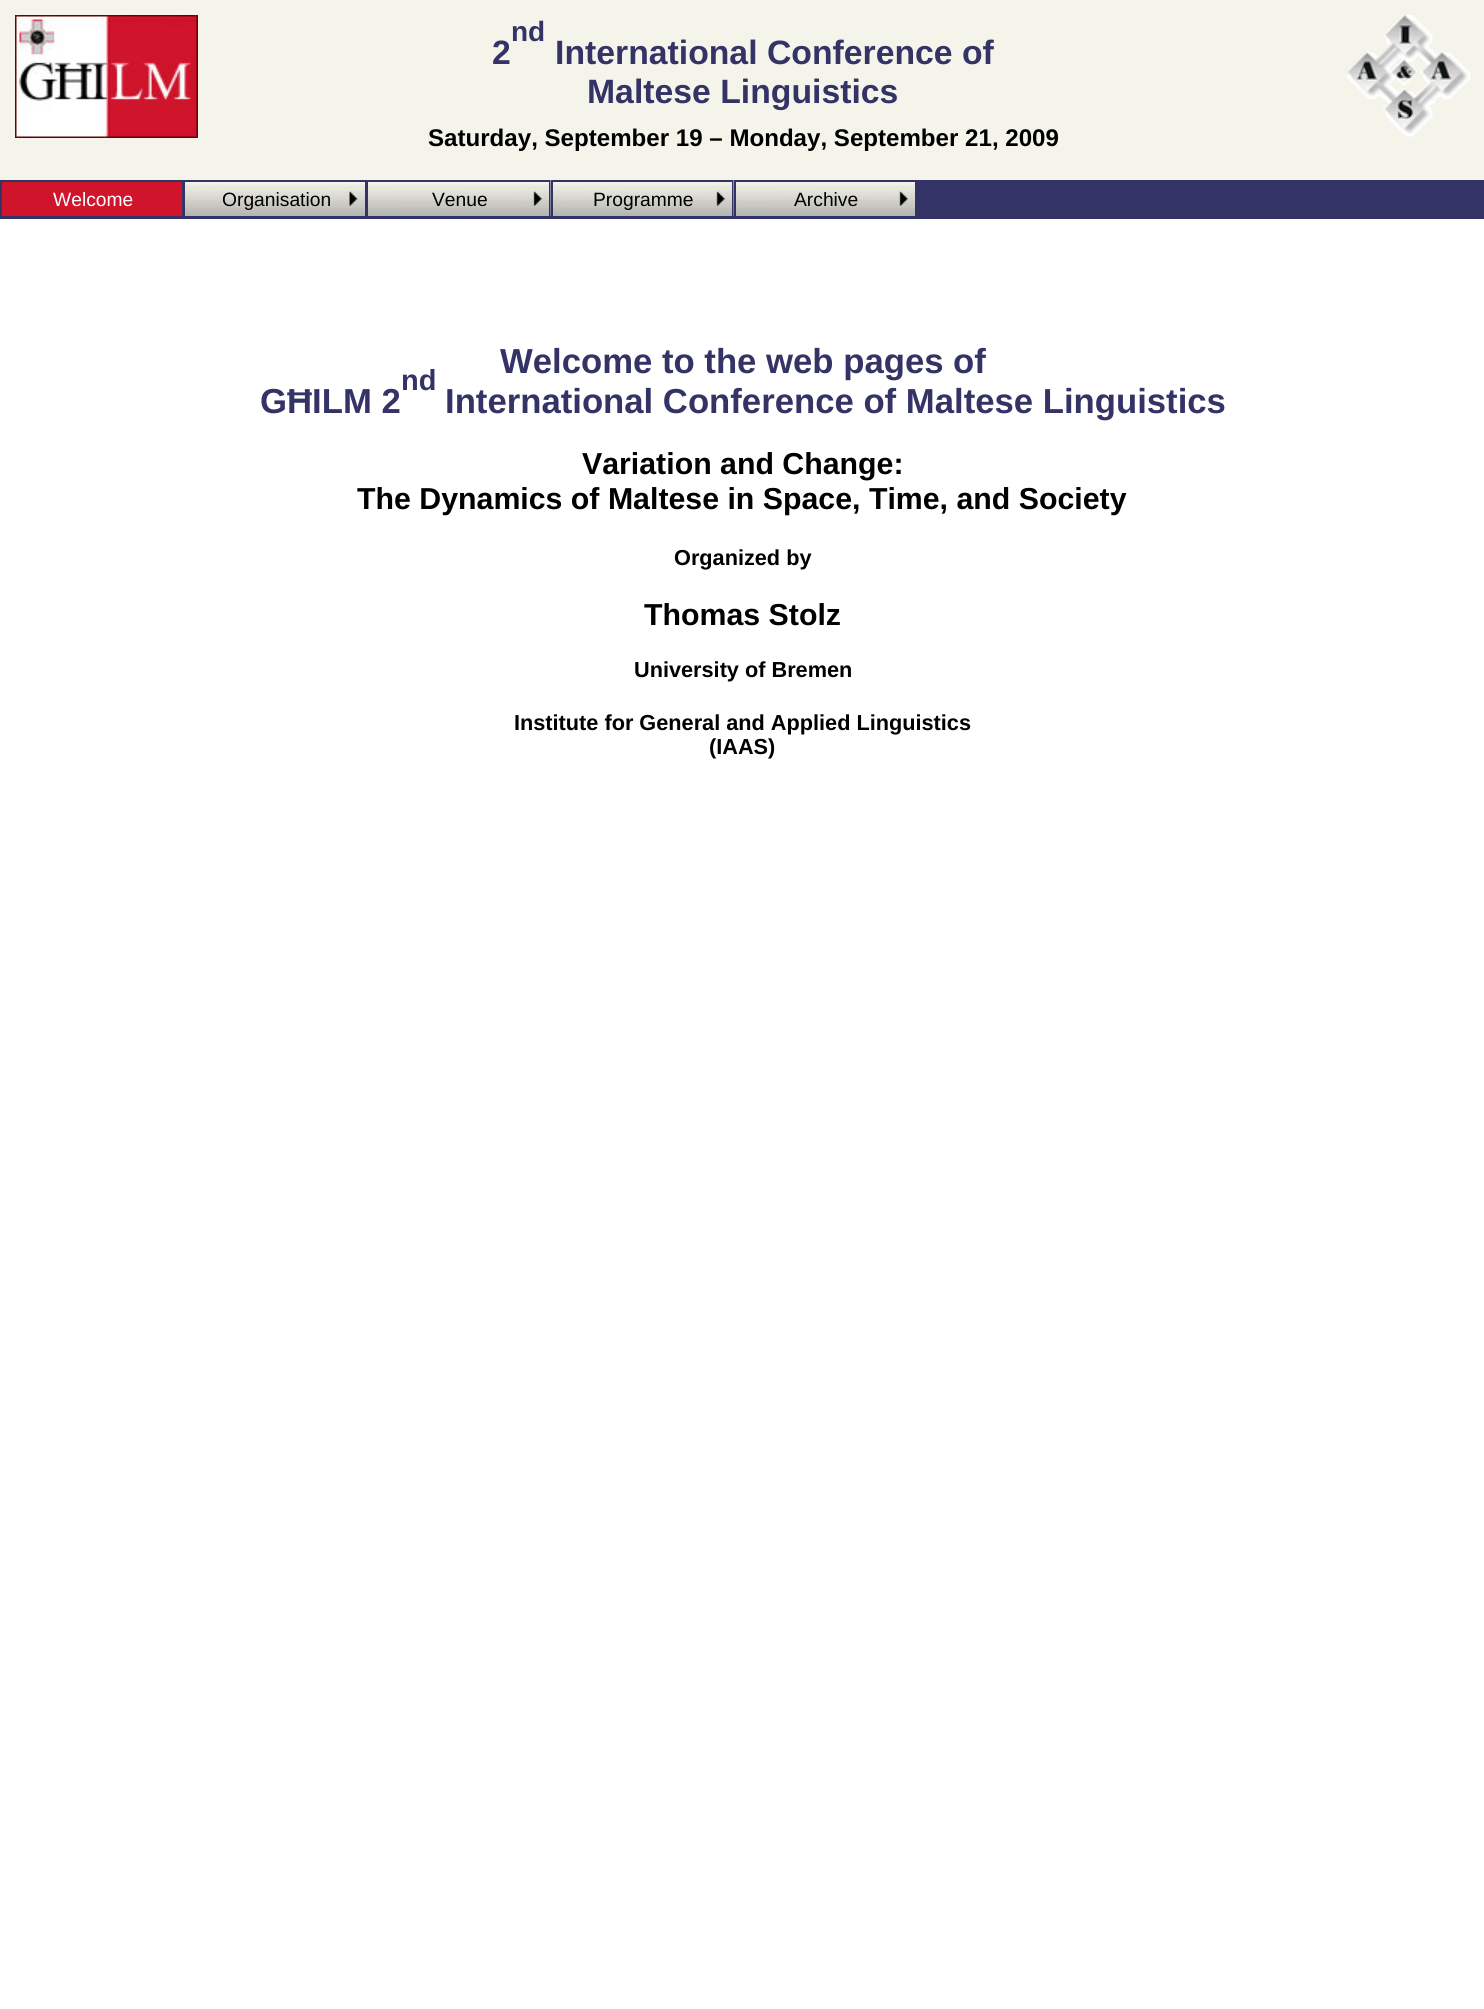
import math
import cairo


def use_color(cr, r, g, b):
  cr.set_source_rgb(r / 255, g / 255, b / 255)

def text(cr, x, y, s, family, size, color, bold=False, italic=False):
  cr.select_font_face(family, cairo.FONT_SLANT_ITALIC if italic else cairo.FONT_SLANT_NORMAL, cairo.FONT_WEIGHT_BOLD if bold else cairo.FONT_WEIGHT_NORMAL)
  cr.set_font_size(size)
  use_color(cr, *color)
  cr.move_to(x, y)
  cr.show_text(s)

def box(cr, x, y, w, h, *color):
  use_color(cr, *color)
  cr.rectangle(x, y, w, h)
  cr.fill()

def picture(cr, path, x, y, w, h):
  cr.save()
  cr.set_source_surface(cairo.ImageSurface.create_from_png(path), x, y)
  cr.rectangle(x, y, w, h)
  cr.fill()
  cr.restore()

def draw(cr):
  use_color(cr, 255, 255, 255)
  cr.paint()
  box(cr, 0, 0, 1484, 180, 245, 244, 235)
  picture(cr, "img_01.png", 15, 15, 183, 123)
  picture(cr, "img_02.png", 1347, 15, 123, 122)
  box(cr, 0, 180, 1484, 39, 51, 51, 102)
  box(cr, 2, 182, 180, 34, 208, 20, 44)
  box(cr, 185, 182, 180, 2, 245, 244, 235)
  picture(cr, "img_03.png", 185, 184, 180, 32)
  picture(cr, "img_04.png", 349, 191, 9, 15)
  box(cr, 368, 182, 181, 2, 245, 244, 235)
  picture(cr, "img_05.png", 368, 184, 181, 32)
  picture(cr, "img_06.png", 533, 191, 9, 15)
  picture(cr, "img_07.png", 550, 180, 182, 36)
  picture(cr, "img_08.png", 716, 191, 9, 15)
  box(cr, 551, 180, 183, 2, 51, 51, 102)
  box(cr, 551, 180, 2, 36, 51, 51, 102)
  picture(cr, "img_09.png", 733, 180, 182, 36)
  picture(cr, "img_10.png", 899, 191, 9, 15)
  box(cr, 734, 180, 183, 2, 51, 51, 102)
  box(cr, 734, 180, 2, 36, 51, 51, 102)
  text(cr, 511, 41, "nd", "Liberation Sans", 28, (51, 51, 102), bold=True)
  text(cr, 492, 64, "2", "Liberation Sans", 33.75, (51, 51, 102), bold=True)
  text(cr, 555, 64, "International Conference of", "Liberation Sans", 33.75, (51, 51, 102), bold=True)
  text(cr, 587, 103, "Maltese Linguistics", "Liberation Sans", 33.75, (51, 51, 102), bold=True)
  text(cr, 428, 146, "Saturday, September 19 – Monday, September 21, 2009", "Liberation Sans", 24.1, (0, 0, 0), bold=True)
  text(cr, 53, 206, "Welcome", "Liberation Sans", 19.25, (255, 255, 255))
  text(cr, 222, 206, "Organisation", "Liberation Sans", 19.25, (0, 0, 0))
  text(cr, 432, 206, "Venue", "Liberation Sans", 19.25, (0, 0, 0))
  text(cr, 593, 206, "Programme", "Liberation Sans", 19.25, (0, 0, 0))
  text(cr, 794, 206, "Archive", "Liberation Sans", 19.25, (0, 0, 0))
  text(cr, 401, 390, "nd", "Liberation Sans", 29, (51, 51, 102), bold=True)
  text(cr, 500, 373, "Welcome to the web pages of", "Liberation Sans", 34.7, (51, 51, 102), bold=True)
  text(cr, 260, 413, "GĦILM 2", "Liberation Sans", 34.7, (51, 51, 102), bold=True)
  text(cr, 445, 413, "International Conference of Maltese Linguistics", "Liberation Sans", 34.7, (51, 51, 102), bold=True)
  text(cr, 582, 474, "Variation and Change:", "Liberation Sans", 30.3, (0, 0, 0), bold=True)
  text(cr, 357, 509, "The Dynamics of Maltese in Space, Time, and Society", "Liberation Sans", 30.3, (0, 0, 0), bold=True)
  text(cr, 674, 565, "Organized by", "Liberation Sans", 21.7, (0, 0, 0), bold=True)
  text(cr, 644, 625, "Thomas Stolz", "Liberation Sans", 30.3, (0, 0, 0), bold=True)
  text(cr, 634, 677, "University of Bremen", "Liberation Sans", 21.7, (0, 0, 0), bold=True)
  text(cr, 514, 730, "Institute for General and Applied Linguistics", "Liberation Sans", 21.7, (0, 0, 0), bold=True)
  text(cr, 709, 754, "(IAAS)", "Liberation Sans", 21.7, (0, 0, 0), bold=True)


surface = cairo.ImageSurface(cairo.FORMAT_RGB24, 1484, 2009)
cr = cairo.Context(surface)
options = cairo.FontOptions()
options.set_hint_metrics(cairo.HINT_METRICS_OFF)
options.set_hint_style(cairo.HINT_STYLE_NONE)
cr.set_font_options(options)
cr.set_miter_limit(4)
draw(cr)
surface.write_to_png("out.png")
